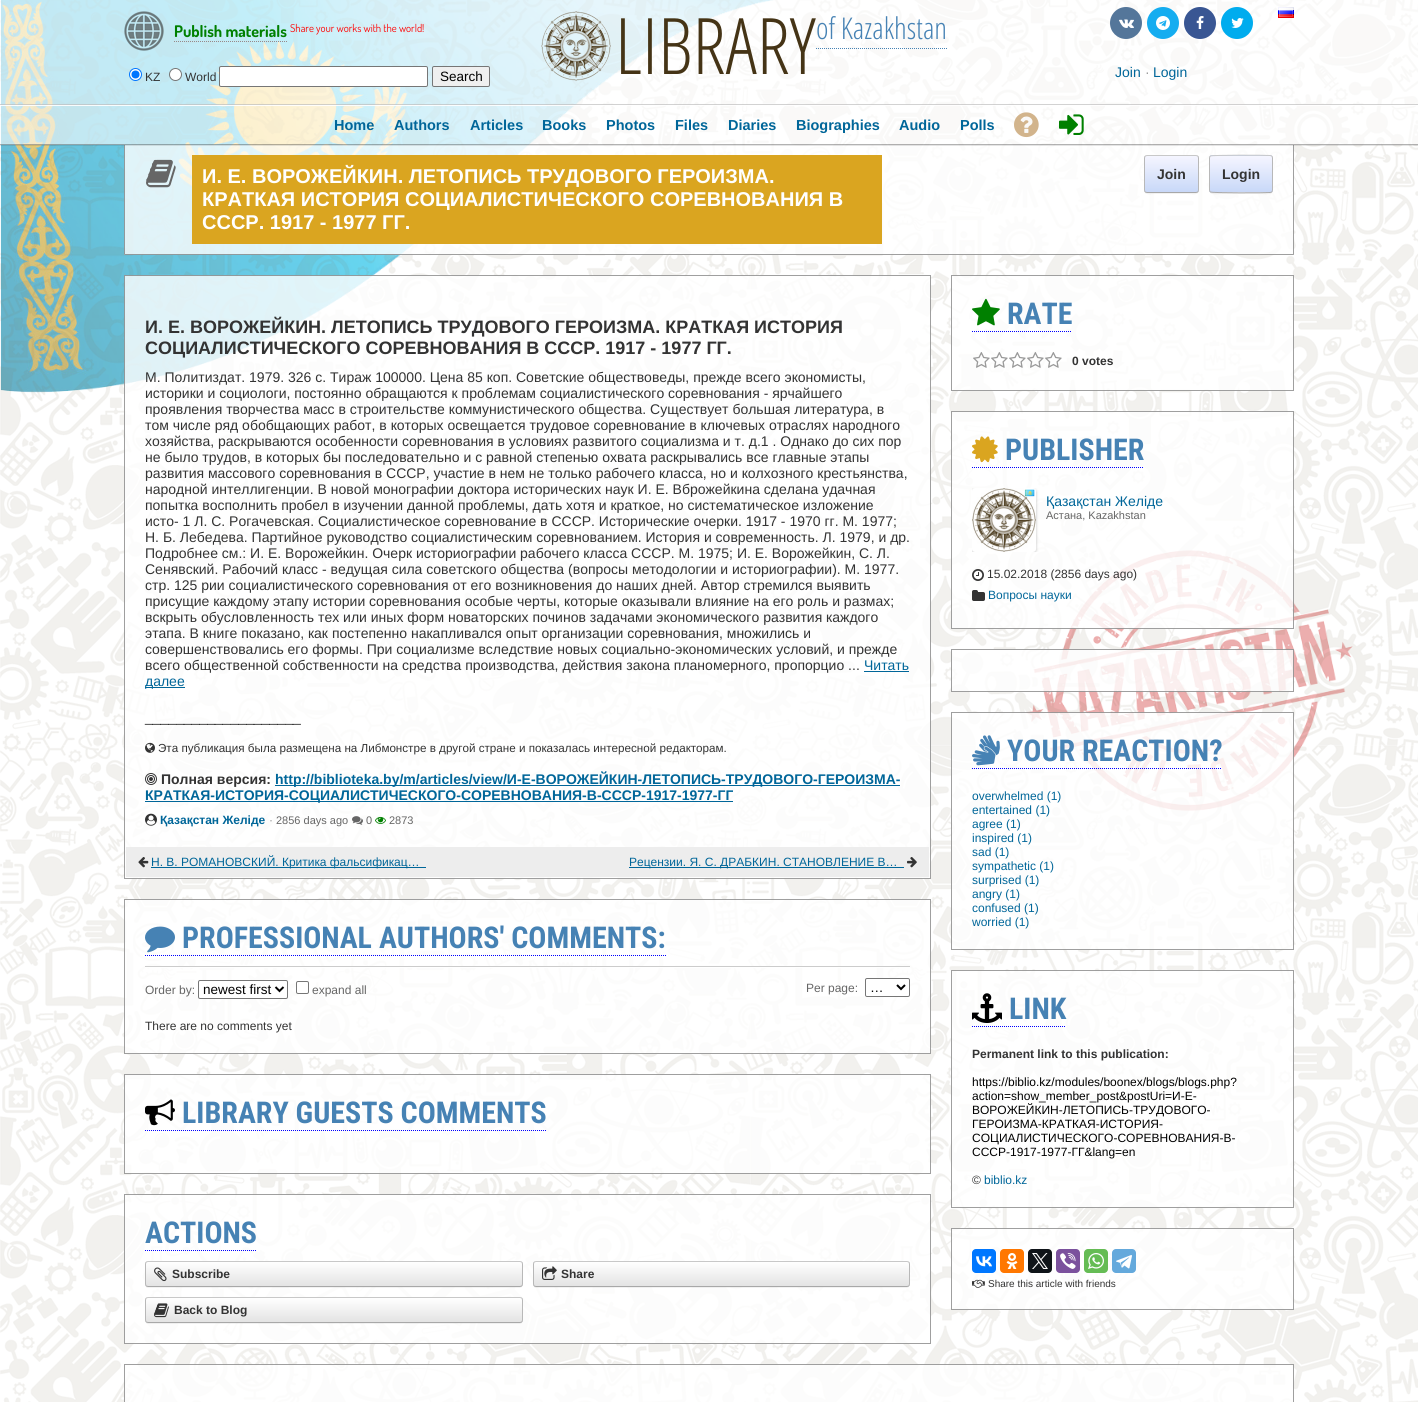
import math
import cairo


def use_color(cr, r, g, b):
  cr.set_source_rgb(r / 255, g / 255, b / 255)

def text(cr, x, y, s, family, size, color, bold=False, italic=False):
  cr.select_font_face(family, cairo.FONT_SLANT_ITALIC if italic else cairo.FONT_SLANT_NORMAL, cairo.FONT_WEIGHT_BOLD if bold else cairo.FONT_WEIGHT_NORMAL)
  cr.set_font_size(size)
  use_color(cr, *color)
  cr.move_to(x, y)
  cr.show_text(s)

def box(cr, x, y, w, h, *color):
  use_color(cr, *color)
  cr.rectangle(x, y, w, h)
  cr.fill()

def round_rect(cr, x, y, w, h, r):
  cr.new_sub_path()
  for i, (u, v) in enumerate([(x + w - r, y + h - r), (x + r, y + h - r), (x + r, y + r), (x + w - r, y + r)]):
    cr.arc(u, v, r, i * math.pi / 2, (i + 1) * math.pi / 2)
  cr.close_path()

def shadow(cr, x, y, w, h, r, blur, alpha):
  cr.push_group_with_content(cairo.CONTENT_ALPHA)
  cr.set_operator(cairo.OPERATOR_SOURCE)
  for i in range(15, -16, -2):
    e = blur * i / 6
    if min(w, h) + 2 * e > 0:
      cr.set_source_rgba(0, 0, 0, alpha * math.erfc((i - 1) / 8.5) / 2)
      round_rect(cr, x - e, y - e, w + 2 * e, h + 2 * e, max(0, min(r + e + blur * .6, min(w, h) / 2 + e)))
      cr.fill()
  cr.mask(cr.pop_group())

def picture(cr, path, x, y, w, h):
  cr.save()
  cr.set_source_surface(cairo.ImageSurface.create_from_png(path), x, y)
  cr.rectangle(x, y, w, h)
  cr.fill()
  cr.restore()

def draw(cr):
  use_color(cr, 255, 255, 255)
  cr.paint()
  picture(cr, "img_01.png", 0, 0, 1353, 811)
  picture(cr, "img_02.png", 0, 0, 1418, 1402)
  cr.set_source_rgba(1, 1, 1, 0.8)
  cr.rectangle(124, 145, 1170, 110)
  cr.fill()
  cr.set_source_rgba(0.251, 0.251, 0.251, 0.5)
  cr.new_path()
  cr.move_to(1294, 145)
  cr.line_to(1294, 255)
  cr.line_to(1293, 254)
  cr.line_to(1293, 145)
  cr.close_path()
  cr.fill()
  cr.new_path()
  cr.move_to(1294, 255)
  cr.line_to(124, 255)
  cr.line_to(125, 254)
  cr.line_to(1293, 254)
  cr.close_path()
  cr.fill()
  cr.new_path()
  cr.move_to(124, 255)
  cr.line_to(124, 145)
  cr.line_to(125, 145)
  cr.line_to(125, 254)
  cr.close_path()
  cr.fill()
  cr.save()
  cr.rectangle(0, 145, 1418, 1)
  cr.clip()
  use_color(cr, 51, 51, 51)
  shadow(cr, 0, 106, 1418, 40, 0, 0.5, 0.15)
  cr.restore()
  cr.set_source_rgba(1, 1, 1, 0.6)
  cr.rectangle(0, 0, 1418, 105)
  cr.fill()
  cr.set_source_rgba(0.753, 0.753, 0.753, 0.7)
  cr.rectangle(0, 104, 1418, 1)
  cr.fill()
  use_color(cr, 255, 255, 255)
  cr.arc(135.5, 74.5, 6, 0, 2 * math.pi)
  cr.fill_preserve()
  use_color(cr, 0, 117, 255)
  cr.set_line_width(1)
  cr.stroke()
  cr.arc(135.5, 74.5, 4, 0, 2 * math.pi)
  cr.fill()
  use_color(cr, 255, 255, 255)
  cr.arc(175.5, 74.5, 6, 0, 2 * math.pi)
  cr.fill_preserve()
  use_color(cr, 118, 118, 118)
  cr.stroke()
  use_color(cr, 255, 255, 255)
  round_rect(cr, 219.5, 66.5, 208, 20, 1.5)
  cr.fill_preserve()
  use_color(cr, 118, 118, 118)
  cr.stroke()
  use_color(cr, 239, 239, 239)
  round_rect(cr, 432.5, 66.5, 57, 20, 1.5)
  cr.fill_preserve()
  use_color(cr, 118, 118, 118)
  cr.stroke()
  picture(cr, "img_03.png", 541, 11, 70, 70)
  cr.new_path()
  cr.move_to(816, 48.5)
  cr.line_to(947, 48.5)
  use_color(cr, 70, 130, 180)
  cr.set_dash([1, 1])
  cr.stroke()
  use_color(cr, 84, 118, 154)
  cr.arc(1126, 23, 16, 0, 2 * math.pi)
  cr.fill()
  picture(cr, "img_04.png", 1119, 19, 15, 9)
  use_color(cr, 21, 173, 240)
  cr.arc(1163, 23, 16, 0, 2 * math.pi)
  cr.fill()
  picture(cr, "img_05.png", 1156, 16, 14, 14)
  use_color(cr, 57, 86, 147)
  cr.arc(1200, 23, 16, 0, 2 * math.pi)
  cr.fill()
  picture(cr, "img_06.png", 1196, 16, 8, 13)
  use_color(cr, 0, 172, 238)
  cr.arc(1237, 23, 16, 0, 2 * math.pi)
  cr.fill()
  picture(cr, "img_07.png", 1231, 18, 13, 10)
  picture(cr, "img_08.png", 1278, 7, 16, 11)
  picture(cr, "img_09.png", 124, 11, 40, 40)
  cr.new_path()
  cr.move_to(174, 41.5)
  cr.line_to(287, 41.5)
  use_color(cr, 152, 137, 137)
  cr.stroke()
  cr.set_source_rgba(1, 1, 1, 0.6)
  cr.rectangle(0, 105, 1418, 40)
  cr.fill()
  cr.set_source_rgba(1, 1, 1, 0.9)
  cr.rectangle(0, 105, 1418, 1)
  cr.fill()
  cr.set_source_rgba(0.251, 0.251, 0.251, 0.4)
  cr.rectangle(0, 144, 1418, 1)
  cr.fill()
  picture(cr, "img_10.png", 1014, 112, 25, 26)
  picture(cr, "img_11.png", 1059, 114, 25, 21)
  picture(cr, "img_12.png", 146, 159, 30, 29)
  box(cr, 192, 155, 690, 89, 218, 165, 32)
  cr.set_source_rgba(0.502, 0.502, 0.502, 0.1)
  cr.new_path()
  cr.move_to(1144, 190)
  cr.curve_to(1144, 196, 1151, 194, 1155, 194)
  cr.line_to(1188, 194)
  cr.curve_to(1192, 194, 1199, 196, 1199, 190)
  cr.curve_to(1199, 192, 1198, 193, 1196, 193)
  cr.line_to(1147, 193)
  cr.curve_to(1145, 193, 1144, 192, 1144, 190)
  cr.close_path()
  cr.fill()
  cr.save()
  round_rect(cr, 1144, 155, 55, 38, 3)
  cr.clip()
  gradient = cairo.LinearGradient(1172, 156, 1172, 192)
  gradient.add_color_stop_rgba(0, 0.961, 0.961, 1, 1)
  gradient.add_color_stop_rgba(1, 0.784, 0.847, 0.973, 1)
  cr.set_source(gradient)
  cr.rectangle(1144, 156, 55, 36)
  cr.fill()
  cr.restore()
  cr.new_path()
  cr.move_to(1145, 156)
  cr.line_to(1147, 155.5)
  cr.line_to(1196, 155.5)
  cr.line_to(1198, 156)
  use_color(cr, 200, 200, 200)
  cr.set_dash([])
  cr.stroke()
  cr.new_path()
  cr.move_to(1198, 156)
  cr.curve_to(1198, 156.5, 1198.5, 157.5, 1198.5, 158)
  cr.line_to(1198.5, 190)
  cr.curve_to(1198.5, 190.5, 1198, 191.5, 1198, 192)
  use_color(cr, 184, 184, 184)
  cr.stroke()
  cr.new_path()
  cr.move_to(1198, 192)
  cr.line_to(1196, 192.5)
  cr.line_to(1147, 192.5)
  cr.line_to(1145, 192)
  use_color(cr, 168, 168, 168)
  cr.stroke()
  cr.new_path()
  cr.move_to(1145, 192)
  cr.curve_to(1145, 191.5, 1144.5, 190.5, 1144.5, 190)
  cr.line_to(1144.5, 158)
  cr.curve_to(1144.5, 157.5, 1145, 156.5, 1145, 156)
  use_color(cr, 184, 184, 184)
  cr.stroke()
  cr.set_source_rgba(0.502, 0.502, 0.502, 0.1)
  cr.new_path()
  cr.move_to(1209, 190)
  cr.curve_to(1209, 196, 1217, 194, 1222, 194)
  cr.line_to(1260, 194)
  cr.curve_to(1265, 194, 1273, 196, 1273, 190)
  cr.curve_to(1273, 192, 1272, 193, 1270, 193)
  cr.line_to(1212, 193)
  cr.curve_to(1210, 193, 1209, 192, 1209, 190)
  cr.close_path()
  cr.fill()
  cr.save()
  round_rect(cr, 1209, 155, 64, 38, 3)
  cr.clip()
  gradient = cairo.LinearGradient(1241, 120, 1241, 156)
  gradient.add_color_stop_rgba(0, 0.961, 0.961, 1, 1)
  gradient.add_color_stop_rgba(1, 0.784, 0.847, 0.973, 1)
  cr.set_source(gradient)
  cr.rectangle(1209, 155, 64, 1)
  cr.fill()
  gradient = cairo.LinearGradient(1241, 156, 1241, 192)
  gradient.add_color_stop_rgba(0, 0.961, 0.961, 1, 1)
  gradient.add_color_stop_rgba(1, 0.784, 0.847, 0.973, 1)
  cr.set_source(gradient)
  cr.rectangle(1209, 156, 64, 36)
  cr.fill()
  gradient = cairo.LinearGradient(1241, 192, 1241, 228)
  gradient.add_color_stop_rgba(0, 0.961, 0.961, 1, 1)
  gradient.add_color_stop_rgba(1, 0.784, 0.847, 0.973, 1)
  cr.set_source(gradient)
  cr.rectangle(1209, 192, 64, 1)
  cr.fill()
  cr.restore()
  cr.new_path()
  cr.move_to(1210, 156)
  cr.line_to(1210.5, 156)
  cr.curve_to(1211.5, 155, 1265, 155, 1270, 155.5)
  cr.line_to(1272, 156)
  use_color(cr, 200, 200, 200)
  cr.stroke()
  cr.new_path()
  cr.move_to(1272, 156)
  cr.curve_to(1272, 156.5, 1272.5, 157.5, 1272.5, 158)
  cr.line_to(1272.5, 190)
  cr.curve_to(1272.5, 190.5, 1272, 191.5, 1272, 192)
  use_color(cr, 184, 184, 184)
  cr.stroke()
  cr.new_path()
  cr.move_to(1272, 192)
  cr.line_to(1270, 192.5)
  cr.curve_to(1265, 193, 1211.5, 193, 1210.5, 192)
  cr.line_to(1210, 192)
  use_color(cr, 168, 168, 168)
  cr.stroke()
  cr.new_path()
  cr.move_to(1210, 192)
  cr.curve_to(1210, 191.5, 1209.5, 190.5, 1209.5, 190)
  cr.line_to(1209.5, 158)
  cr.curve_to(1209.5, 157.5, 1210, 156.5, 1210, 156)
  use_color(cr, 184, 184, 184)
  cr.stroke()
  cr.set_source_rgba(1, 1, 1, 0.8)
  cr.rectangle(124, 275, 807, 604)
  cr.fill()
  cr.rectangle(124.5, 275.5, 806, 603)
  cr.set_source_rgba(0.251, 0.251, 0.251, 0.5)
  cr.stroke()
  box(cr, 864, 671, 45, 1, 0, 102, 153)
  box(cr, 145, 687, 40, 1, 0, 102, 153)
  picture(cr, "img_13.png", 145, 742, 10, 11)
  picture(cr, "img_14.png", 145, 773, 12, 12)
  box(cr, 275, 785, 625, 1, 0, 102, 153)
  box(cr, 145, 801, 588, 1, 0, 102, 153)
  picture(cr, "img_15.png", 145, 813, 12, 13)
  picture(cr, "img_16.png", 352, 816, 11, 9)
  picture(cr, "img_17.png", 375, 816, 11, 8)
  box(cr, 126, 847, 803, 30, 237, 237, 237)
  picture(cr, "img_18.png", 138, 857, 11, 11)
  box(cr, 151, 867, 275, 1, 0, 102, 153)
  box(cr, 629, 867, 275, 1, 0, 102, 153)
  picture(cr, "img_19.png", 907, 857, 10, 11)
  cr.set_source_rgba(1, 1, 1, 0.8)
  cr.rectangle(124, 899, 807, 155)
  cr.fill()
  cr.rectangle(124.5, 899.5, 806, 154)
  cr.set_source_rgba(0.251, 0.251, 0.251, 0.5)
  cr.stroke()
  cr.new_path()
  cr.move_to(145, 955.5)
  cr.line_to(666, 955.5)
  use_color(cr, 0, 0, 255)
  cr.set_dash([1, 1])
  cr.stroke()
  picture(cr, "img_20.png", 145, 926, 30, 27)
  box(cr, 145, 966, 765, 1, 204, 204, 204)
  box(cr, 145, 967, 765, 1, 255, 255, 255)
  round_rect(cr, 198.5, 980.5, 89, 18, 1.5)
  cr.fill_preserve()
  use_color(cr, 118, 118, 118)
  cr.set_dash([])
  cr.stroke()
  cr.new_path()
  cr.move_to(275.5, 987)
  cr.line_to(279.5, 991)
  cr.line_to(283.5, 987)
  use_color(cr, 0, 0, 0)
  cr.set_line_width(2)
  cr.stroke()
  use_color(cr, 255, 255, 255)
  round_rect(cr, 296.5, 981.5, 12, 12, 1.5)
  cr.fill_preserve()
  use_color(cr, 118, 118, 118)
  cr.set_line_width(1)
  cr.stroke()
  use_color(cr, 255, 255, 255)
  round_rect(cr, 865.5, 978.5, 44, 18, 1.5)
  cr.fill_preserve()
  use_color(cr, 118, 118, 118)
  cr.stroke()
  cr.new_path()
  cr.move_to(897, 985)
  cr.line_to(901, 989)
  cr.line_to(905, 985)
  use_color(cr, 0, 0, 0)
  cr.set_line_width(2)
  cr.stroke()
  cr.set_source_rgba(1, 1, 1, 0.8)
  cr.rectangle(124, 1074, 807, 100)
  cr.fill()
  cr.rectangle(124.5, 1074.5, 806, 99)
  cr.set_source_rgba(0.251, 0.251, 0.251, 0.5)
  cr.set_line_width(1)
  cr.stroke()
  cr.new_path()
  cr.move_to(145, 1130.5)
  cr.line_to(547, 1130.5)
  use_color(cr, 0, 0, 255)
  cr.set_dash([1, 1])
  cr.stroke()
  picture(cr, "img_21.png", 145, 1099, 30, 27)
  cr.set_source_rgba(1, 1, 1, 0.8)
  cr.rectangle(124, 1194, 807, 150)
  cr.fill()
  cr.rectangle(124.5, 1194.5, 806, 149)
  cr.set_source_rgba(0.251, 0.251, 0.251, 0.5)
  cr.set_dash([])
  cr.stroke()
  cr.new_path()
  cr.move_to(145, 1250.5)
  cr.line_to(257, 1250.5)
  use_color(cr, 0, 0, 255)
  cr.set_dash([1, 1])
  cr.stroke()
  cr.set_source_rgba(0.502, 0.502, 0.502, 0.1)
  cr.new_path()
  cr.move_to(145, 1284)
  cr.curve_to(145, 1286, 146, 1288, 148, 1288)
  cr.line_to(520, 1288)
  cr.line_to(522, 1287)
  cr.line_to(523, 1284)
  cr.curve_to(523, 1286, 522, 1287, 520, 1287)
  cr.line_to(148, 1287)
  cr.curve_to(146, 1287, 145, 1286, 145, 1284)
  cr.close_path()
  cr.fill()
  cr.save()
  round_rect(cr, 145, 1261, 378, 26, 3)
  cr.clip()
  gradient = cairo.LinearGradient(334, 1262, 334, 1286)
  gradient.add_color_stop_rgba(0, 1, 1, 1, 1)
  gradient.add_color_stop_rgba(1, 0.89, 0.89, 0.89, 1)
  cr.set_source(gradient)
  cr.rectangle(145, 1262, 378, 24)
  cr.fill()
  cr.restore()
  cr.new_path()
  cr.move_to(146, 1262)
  cr.line_to(148, 1261.5)
  cr.line_to(520, 1261.5)
  cr.line_to(522, 1262)
  use_color(cr, 200, 200, 200)
  cr.set_dash([])
  cr.stroke()
  cr.new_path()
  cr.move_to(522, 1262)
  cr.curve_to(522, 1262.5, 522.5, 1263.5, 522.5, 1264)
  cr.line_to(522.5, 1284)
  cr.curve_to(522.5, 1284.5, 522, 1285.5, 522, 1286)
  use_color(cr, 184, 184, 184)
  cr.stroke()
  cr.new_path()
  cr.move_to(522, 1286)
  cr.line_to(520, 1286.5)
  cr.line_to(148, 1286.5)
  cr.line_to(146, 1286)
  use_color(cr, 168, 168, 168)
  cr.stroke()
  cr.new_path()
  cr.move_to(146, 1286)
  cr.curve_to(146, 1285.5, 145.5, 1284.5, 145.5, 1284)
  cr.line_to(145.5, 1264)
  cr.curve_to(145.5, 1263.5, 146, 1262.5, 146, 1262)
  use_color(cr, 184, 184, 184)
  cr.stroke()
  picture(cr, "img_22.png", 154, 1267, 13, 15)
  cr.set_source_rgba(0.502, 0.502, 0.502, 0.1)
  cr.new_path()
  cr.move_to(533, 1284)
  cr.curve_to(533, 1286, 534, 1288, 536, 1288)
  cr.line_to(907, 1288)
  cr.line_to(909, 1287)
  cr.line_to(910, 1284)
  cr.curve_to(910, 1286, 909, 1287, 907, 1287)
  cr.line_to(536, 1287)
  cr.curve_to(534, 1287, 533, 1286, 533, 1284)
  cr.close_path()
  cr.fill()
  cr.save()
  round_rect(cr, 533, 1261, 377, 26, 3)
  cr.clip()
  gradient = cairo.LinearGradient(722, 1262, 722, 1286)
  gradient.add_color_stop_rgba(0, 1, 1, 1, 1)
  gradient.add_color_stop_rgba(1, 0.89, 0.89, 0.89, 1)
  cr.set_source(gradient)
  cr.rectangle(533, 1262, 377, 24)
  cr.fill()
  cr.restore()
  cr.new_path()
  cr.move_to(534, 1262)
  cr.line_to(536, 1261.5)
  cr.line_to(907, 1261.5)
  cr.line_to(909, 1262)
  use_color(cr, 200, 200, 200)
  cr.stroke()
  cr.new_path()
  cr.move_to(909, 1262)
  cr.curve_to(909, 1262.5, 909.5, 1263.5, 909.5, 1264)
  cr.line_to(909.5, 1284)
  cr.curve_to(909.5, 1284.5, 909, 1285.5, 909, 1286)
  use_color(cr, 184, 184, 184)
  cr.stroke()
  cr.new_path()
  cr.move_to(909, 1286)
  cr.line_to(907, 1286.5)
  cr.line_to(536, 1286.5)
  cr.line_to(534, 1286)
  use_color(cr, 168, 168, 168)
  cr.stroke()
  cr.new_path()
  cr.move_to(534, 1286)
  cr.curve_to(534, 1285.5, 533.5, 1284.5, 533.5, 1284)
  cr.line_to(533.5, 1264)
  cr.curve_to(533.5, 1263.5, 534, 1262.5, 534, 1262)
  use_color(cr, 184, 184, 184)
  cr.stroke()
  picture(cr, "img_23.png", 542, 1266, 15, 14)
  cr.set_source_rgba(0.502, 0.502, 0.502, 0.1)
  cr.new_path()
  cr.move_to(145, 1320)
  cr.curve_to(145, 1322, 146, 1324, 148, 1324)
  cr.line_to(520, 1324)
  cr.line_to(522, 1323)
  cr.line_to(523, 1320)
  cr.curve_to(523, 1322, 522, 1323, 520, 1323)
  cr.line_to(148, 1323)
  cr.curve_to(146, 1323, 145, 1322, 145, 1320)
  cr.close_path()
  cr.fill()
  cr.save()
  round_rect(cr, 145, 1297, 378, 26, 3)
  cr.clip()
  gradient = cairo.LinearGradient(334, 1298, 334, 1322)
  gradient.add_color_stop_rgba(0, 1, 1, 1, 1)
  gradient.add_color_stop_rgba(1, 0.89, 0.89, 0.89, 1)
  cr.set_source(gradient)
  cr.rectangle(145, 1298, 378, 24)
  cr.fill()
  cr.restore()
  cr.new_path()
  cr.move_to(146, 1298)
  cr.line_to(148, 1297.5)
  cr.line_to(520, 1297.5)
  cr.line_to(522, 1298)
  use_color(cr, 200, 200, 200)
  cr.stroke()
  cr.new_path()
  cr.move_to(522, 1298)
  cr.curve_to(522, 1298.5, 522.5, 1299.5, 522.5, 1300)
  cr.line_to(522.5, 1320)
  cr.curve_to(522.5, 1320.5, 522, 1321.5, 522, 1322)
  use_color(cr, 184, 184, 184)
  cr.stroke()
  cr.new_path()
  cr.move_to(522, 1322)
  cr.line_to(520, 1322.5)
  cr.line_to(148, 1322.5)
  cr.line_to(146, 1322)
  use_color(cr, 168, 168, 168)
  cr.stroke()
  cr.new_path()
  cr.move_to(146, 1322)
  cr.curve_to(146, 1321.5, 145.5, 1320.5, 145.5, 1320)
  cr.line_to(145.5, 1300)
  cr.curve_to(145.5, 1299.5, 146, 1298.5, 146, 1298)
  use_color(cr, 184, 184, 184)
  cr.stroke()
  picture(cr, "img_24.png", 154, 1303, 15, 15)
  cr.set_source_rgba(1, 1, 1, 0.8)
  cr.rectangle(951, 275, 343, 116)
  cr.fill()
  cr.rectangle(951.5, 275.5, 342, 115)
  cr.set_source_rgba(0.251, 0.251, 0.251, 0.5)
  cr.stroke()
  cr.new_path()
  cr.move_to(972, 331.5)
  cr.line_to(1072, 331.5)
  use_color(cr, 0, 0, 255)
  cr.set_dash([1, 1])
  cr.stroke()
  picture(cr, "img_25.png", 972, 298, 28, 28)
  picture(cr, "img_26.png", 973, 352, 17, 16)
  picture(cr, "img_27.png", 991, 352, 17, 16)
  picture(cr, "img_28.png", 1009, 352, 17, 16)
  picture(cr, "img_29.png", 1027, 352, 17, 16)
  picture(cr, "img_30.png", 1045, 352, 17, 16)
  cr.set_source_rgba(1, 1, 1, 0.8)
  cr.rectangle(951, 411, 343, 218)
  cr.fill()
  cr.rectangle(951.5, 411.5, 342, 217)
  cr.set_source_rgba(0.251, 0.251, 0.251, 0.5)
  cr.set_dash([])
  cr.stroke()
  cr.new_path()
  cr.move_to(972, 467.5)
  cr.line_to(1144, 467.5)
  use_color(cr, 0, 0, 255)
  cr.set_dash([1, 1])
  cr.stroke()
  picture(cr, "img_31.png", 972, 436, 26, 27)
  cr.save()
  cr.rectangle(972, 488, 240, 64)
  cr.clip()
  use_color(cr, 51, 51, 51)
  shadow(cr, 972, 489, 64, 64, 3, 1.5, 0.3)
  cr.restore()
  picture(cr, "img_32.png", 972, 488, 64, 64)
  picture(cr, "img_33.png", 972, 569, 12, 12)
  picture(cr, "img_34.png", 972, 590, 13, 11)
  cr.set_source_rgba(1, 1, 1, 0.8)
  cr.rectangle(951, 649, 343, 43)
  cr.fill()
  cr.rectangle(951.5, 649.5, 342, 42)
  cr.set_source_rgba(0.251, 0.251, 0.251, 0.5)
  cr.set_dash([])
  cr.stroke()
  cr.set_source_rgba(1, 1, 1, 0.8)
  cr.rectangle(951, 712, 343, 238)
  cr.fill()
  cr.rectangle(951.5, 712.5, 342, 237)
  cr.set_source_rgba(0.251, 0.251, 0.251, 0.5)
  cr.stroke()
  cr.new_path()
  cr.move_to(972, 768.5)
  cr.line_to(1222, 768.5)
  use_color(cr, 0, 0, 255)
  cr.set_dash([1, 1])
  cr.stroke()
  picture(cr, "img_35.png", 972, 735, 28, 31)
  cr.set_source_rgba(1, 1, 1, 0.8)
  cr.rectangle(951, 970, 343, 238)
  cr.fill()
  cr.rectangle(951.5, 970.5, 342, 237)
  cr.set_source_rgba(0.251, 0.251, 0.251, 0.5)
  cr.set_dash([])
  cr.stroke()
  cr.new_path()
  cr.move_to(972, 1026.5)
  cr.line_to(1066, 1026.5)
  use_color(cr, 0, 0, 255)
  cr.set_dash([1, 1])
  cr.stroke()
  picture(cr, "img_36.png", 972, 993, 30, 30)
  cr.set_source_rgba(1, 1, 1, 0.8)
  cr.rectangle(951, 1228, 343, 82)
  cr.fill()
  cr.rectangle(951.5, 1228.5, 342, 81)
  cr.set_source_rgba(0.251, 0.251, 0.251, 0.5)
  cr.set_dash([])
  cr.stroke()
  use_color(cr, 0, 119, 255)
  round_rect(cr, 972, 1249, 24, 24, 4)
  cr.fill()
  picture(cr, "img_37.png", 976, 1256, 16, 11)
  use_color(cr, 255, 119, 0)
  round_rect(cr, 1000, 1249, 24, 24, 4)
  cr.fill()
  picture(cr, "img_38.png", 1006, 1253, 12, 16)
  use_color(cr, 15, 20, 25)
  round_rect(cr, 1028, 1249, 24, 24, 4)
  cr.fill()
  picture(cr, "img_39.png", 1032, 1253, 16, 16)
  use_color(cr, 123, 81, 157)
  round_rect(cr, 1056, 1249, 24, 24, 4)
  cr.fill()
  picture(cr, "img_40.png", 1060, 1253, 16, 16)
  use_color(cr, 101, 188, 84)
  round_rect(cr, 1084, 1249, 24, 24, 4)
  cr.fill()
  picture(cr, "img_41.png", 1088, 1253, 16, 16)
  use_color(cr, 100, 169, 220)
  round_rect(cr, 1112, 1249, 24, 24, 4)
  cr.fill()
  picture(cr, "img_42.png", 1116, 1255, 16, 14)
  picture(cr, "img_43.png", 972, 1279, 13, 9)
  cr.set_source_rgba(1, 1, 1, 0.8)
  cr.rectangle(124, 1364, 1170, 38)
  cr.fill()
  cr.rectangle(124.5, 1364.5, 1169, 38)
  cr.set_source_rgba(0.251, 0.251, 0.251, 0.5)
  cr.stroke()
  text(cr, 145, 81, "KZ", "Liberation Sans", 12, (51, 51, 51))
  text(cr, 185, 81, "World", "Liberation Sans", 12, (51, 51, 51))
  text(cr, 440, 81, "Search", "Liberation Sans", 13.5, (0, 0, 0))
  text(cr, 615, 74, "LIBRARY", "Open Sans Condensed Light", 78, (69, 52, 22))
  text(cr, 816, 39, "of Kazakhstan", "Open Sans Condensed Light", 30, (70, 130, 180))
  text(cr, 1115, 77, "Join", "Liberation Sans", 14, (0, 102, 153))
  text(cr, 1145, 77, "·", "Liberation Sans", 14, (153, 153, 153))
  text(cr, 1153, 77, "Login", "Liberation Sans", 14, (0, 102, 153))
  text(cr, 174, 37, "Publish materials", "Dosis", 16, (0, 128, 0), bold=True)
  text(cr, 290, 32, "Share your works with the world!", "Dosis", 10.75, (255, 0, 0))
  text(cr, 334, 130, "Home", "Liberation Sans", 14.5, (0, 102, 153), bold=True)
  text(cr, 394, 130, "Authors", "Liberation Sans", 14.5, (0, 102, 153), bold=True)
  text(cr, 470, 130, "Articles", "Liberation Sans", 14.5, (0, 102, 153), bold=True)
  text(cr, 542, 130, "Books", "Liberation Sans", 14.5, (0, 102, 153), bold=True)
  text(cr, 606, 130, "Photos", "Liberation Sans", 14.5, (0, 102, 153), bold=True)
  text(cr, 675, 130, "Files", "Liberation Sans", 14.5, (0, 102, 153), bold=True)
  text(cr, 728, 130, "Diaries", "Liberation Sans", 14.5, (0, 102, 153), bold=True)
  text(cr, 796, 130, "Biographies", "Liberation Sans", 14.5, (0, 102, 153), bold=True)
  text(cr, 899, 130, "Audio", "Liberation Sans", 14.5, (0, 102, 153), bold=True)
  text(cr, 960, 130, "Polls", "Liberation Sans", 14.5, (0, 102, 153), bold=True)
  text(cr, 202, 183, "И. Е. ВОРОЖЕЙКИН. ЛЕТОПИСЬ ТРУДОВОГО ГЕРОИЗМА.", "Liberation Sans", 20, (255, 255, 255), bold=True)
  text(cr, 202, 206, "КРАТКАЯ ИСТОРИЯ СОЦИАЛИСТИЧЕСКОГО СОРЕВНОВАНИЯ В", "Liberation Sans", 20, (255, 255, 255), bold=True)
  text(cr, 202, 229, "СССР. 1917 - 1977 ГГ.", "Liberation Sans", 20, (255, 255, 255), bold=True)
  text(cr, 1157, 179, "Join", "Liberation Sans", 14, (51, 51, 51), bold=True)
  text(cr, 1222, 179, "Login", "Liberation Sans", 14, (51, 51, 51), bold=True)
  text(cr, 145, 333, "И. Е. ВОРОЖЕЙКИН. ЛЕТОПИСЬ ТРУДОВОГО ГЕРОИЗМА. КРАТКАЯ ИСТОРИЯ", "Liberation Sans", 18, (51, 51, 51), bold=True)
  text(cr, 145, 354, "СОЦИАЛИСТИЧЕСКОГО СОРЕВНОВАНИЯ В СССР. 1917 - 1977 ГГ.", "Liberation Sans", 18, (51, 51, 51), bold=True)
  text(cr, 145, 382, "М. Политиздат. 1979. 326 с. Тираж 100000. Цена 85 коп. Советские обществоведы, прежде всего экономисты,", "Liberation Sans", 14, (51, 51, 51))
  text(cr, 145, 398, "историки и социологи, постоянно обращаются к проблемам социалистического соревнования - ярчайшего", "Liberation Sans", 14, (51, 51, 51))
  text(cr, 145, 414, "проявления творчества масс в строительстве коммунистического общества. Существует большая литература, в", "Liberation Sans", 14, (51, 51, 51))
  text(cr, 145, 430, "том числе ряд обобщающих работ, в которых освещается трудовое соревнование в ключевых отраслях народного", "Liberation Sans", 14, (51, 51, 51))
  text(cr, 145, 446, "хозяйства, раскрываются особенности соревнования в условиях развитого социализма и т. д.1 . Однако до сих пор", "Liberation Sans", 14, (51, 51, 51))
  text(cr, 145, 462, "не было трудов, в которых бы последовательно и с равной степенью охвата раскрывались все главные этапы", "Liberation Sans", 14, (51, 51, 51))
  text(cr, 145, 478, "развития массового соревнования в СССР, участие в нем не только рабочего класса, но и колхозного крестьянства,", "Liberation Sans", 14, (51, 51, 51))
  text(cr, 145, 494, "народной интеллигенции. В новой монографии доктора исторических наук И. Е. Вброжейкина сделана удачная", "Liberation Sans", 14, (51, 51, 51))
  text(cr, 145, 510, "попытка восполнить пробел в изучении данной проблемы, дать хотя и краткое, но систематическое изложение", "Liberation Sans", 14, (51, 51, 51))
  text(cr, 145, 526, "исто- 1 Л. С. Рогачевская. Социалистическое соревнование в СССР. Исторические очерки. 1917 - 1970 гг. М. 1977;", "Liberation Sans", 14, (51, 51, 51))
  text(cr, 145, 542, "Н. Б. Лебедева. Партийное руководство социалистическим соревнованием. История и современность. Л. 1979, и др.", "Liberation Sans", 14, (51, 51, 51))
  text(cr, 145, 558, "Подробнее см.: И. Е. Ворожейкин. Очерк историографии рабочего класса СССР. М. 1975; И. Е. Ворожейкин, С. Л.", "Liberation Sans", 14, (51, 51, 51))
  text(cr, 145, 574, "Сенявский. Рабочий класс - ведущая сила советского общества (вопросы методологии и историографии). М. 1977.", "Liberation Sans", 14, (51, 51, 51))
  text(cr, 145, 590, "стр. 125 рии социалистического соревнования от его возникновения до наших дней. Автор стремился выявить", "Liberation Sans", 14, (51, 51, 51))
  text(cr, 145, 606, "присущие каждому этапу истории соревнования особые черты, которые оказывали влияние на его роль и размах;", "Liberation Sans", 14, (51, 51, 51))
  text(cr, 145, 622, "вскрыть обусловленность тех или иных форм новаторских починов задачами экономического развития каждого", "Liberation Sans", 14, (51, 51, 51))
  text(cr, 145, 638, "этапа. В книге показано, как постепенно накапливался опыт организации соревнования, множились и", "Liberation Sans", 14, (51, 51, 51))
  text(cr, 145, 654, "совершенствовались его формы. При социализме вследствие новых социально-экономических условий, и прежде", "Liberation Sans", 14, (51, 51, 51))
  text(cr, 145, 670, "всего общественной собственности на средства производства, действия закона планомерного, пропорцио ...", "Liberation Sans", 14, (51, 51, 51))
  text(cr, 864, 670, "Читать", "Liberation Sans", 14, (0, 102, 153))
  text(cr, 145, 686, "далее", "Liberation Sans", 14, (0, 102, 153))
  text(cr, 145, 722, "____________________", "Liberation Sans", 14, (51, 51, 51))
  text(cr, 158, 752, "Эта публикация была размещена на Либмонстре в другой стране и показалась интересной редакторам.", "Liberation Sans", 11.65, (51, 51, 51))
  text(cr, 161, 784, "Полная версия:", "Liberation Sans", 14, (51, 51, 51), bold=True)
  text(cr, 275, 784, "http://biblioteka.by/m/articles/view/И-Е-ВОРОЖЕЙКИН-ЛЕТОПИСЬ-ТРУДОВОГО-ГЕРОИЗМА-", "Liberation Sans", 14, (0, 102, 153), bold=True)
  text(cr, 145, 800, "КРАТКАЯ-ИСТОРИЯ-СОЦИАЛИСТИЧЕСКОГО-СОРЕВНОВАНИЯ-В-СССР-1917-1977-ГГ", "Liberation Sans", 14, (0, 102, 153), bold=True)
  text(cr, 160, 824, "Қазақстан Желіде", "Liberation Sans", 12, (0, 102, 153), bold=True)
  text(cr, 269, 824, "·", "Liberation Sans", 12, (153, 153, 153))
  text(cr, 276, 824, "2856 days ago", "Liberation Sans", 11, (102, 102, 102))
  text(cr, 366, 824, "0", "Liberation Sans", 11, (102, 102, 102))
  text(cr, 389, 824, "2873", "Liberation Sans", 11, (102, 102, 102))
  text(cr, 151, 866, "Н. В. РОМАНОВСКИЙ. Критика фальсификац…", "Liberation Sans", 12, (0, 102, 153))
  text(cr, 629, 866, "Рецензии. Я. С. ДРАБКИН. СТАНОВЛЕНИЕ В…", "Liberation Sans", 12, (0, 102, 153))
  text(cr, 182, 948, "PROFESSIONAL AUTHORS' COMMENTS:", "Roboto Condensed", 30, (70, 130, 180), bold=True)
  text(cr, 145, 994, "Order by:", "Liberation Sans", 12, (102, 102, 102))
  text(cr, 203, 994, "newest first", "Liberation Sans", 13.5, (0, 0, 0))
  text(cr, 312, 994, "expand all", "Liberation Sans", 12, (102, 102, 102))
  text(cr, 806, 992, "Per page:", "Liberation Sans", 12, (102, 102, 102))
  text(cr, 870, 992, "…", "Liberation Sans", 13.5, (0, 0, 0))
  text(cr, 145, 1030, "There are no comments yet", "Liberation Sans", 12, (51, 51, 51))
  text(cr, 182, 1123, "LIBRARY GUESTS COMMENTS", "Roboto Condensed", 30, (70, 130, 180), bold=True)
  text(cr, 145, 1243, "ACTIONS", "Roboto Condensed", 30, (70, 130, 180), bold=True)
  text(cr, 172, 1278, "Subscribe", "Liberation Sans", 12, (51, 51, 51), bold=True)
  text(cr, 561, 1278, "Share", "Liberation Sans", 12, (51, 51, 51), bold=True)
  text(cr, 174, 1314, "Back to Blog", "Liberation Sans", 12, (51, 51, 51), bold=True)
  text(cr, 1007, 324, "RATE", "Roboto Condensed", 30, (70, 130, 180), bold=True)
  text(cr, 1072, 365, "0 votes", "Liberation Sans", 12, (51, 51, 51), bold=True)
  text(cr, 1005, 460, "PUBLISHER", "Roboto Condensed", 30, (70, 130, 180), bold=True)
  text(cr, 1046, 506, "Қазақстан Желіде", "Liberation Sans", 14, (0, 102, 153))
  text(cr, 1046, 519, "Астана, Kazakhstan", "Liberation Sans", 11, (102, 102, 102))
  text(cr, 987, 578, "15.02.2018 (2856 days ago)", "Liberation Sans", 12, (51, 51, 51))
  text(cr, 988, 599, "Вопросы науки", "Liberation Sans", 12, (0, 102, 153))
  text(cr, 1007, 761, "YOUR REACTION?", "Roboto Condensed", 30, (70, 130, 180), bold=True)
  text(cr, 972, 800, "overwhelmed (1)", "Liberation Sans", 12, (0, 102, 153))
  text(cr, 972, 814, "entertained (1)", "Liberation Sans", 12, (0, 102, 153))
  text(cr, 972, 828, "agree (1)", "Liberation Sans", 12, (0, 102, 153))
  text(cr, 972, 842, "inspired (1)", "Liberation Sans", 12, (0, 102, 153))
  text(cr, 972, 856, "sad (1)", "Liberation Sans", 12, (0, 102, 153))
  text(cr, 972, 870, "sympathetic (1)", "Liberation Sans", 12, (0, 102, 153))
  text(cr, 972, 884, "surprised (1)", "Liberation Sans", 12, (0, 102, 153))
  text(cr, 972, 898, "angry (1)", "Liberation Sans", 12, (0, 102, 153))
  text(cr, 972, 912, "confused (1)", "Liberation Sans", 12, (0, 102, 153))
  text(cr, 972, 926, "worried (1)", "Liberation Sans", 12, (0, 102, 153))
  text(cr, 1009, 1019, "LINK", "Roboto Condensed", 30, (70, 130, 180), bold=True)
  text(cr, 972, 1058, "Permanent link to this publication:", "Liberation Sans", 12, (51, 51, 51), bold=True)
  text(cr, 972, 1086, "https://biblio.kz/modules/boonex/blogs/blogs.php?", "Liberation Sans", 12, (0, 0, 0))
  text(cr, 972, 1100, "action=show_member_post&postUri=И-Е-", "Liberation Sans", 12, (0, 0, 0))
  text(cr, 972, 1114, "ВОРОЖЕЙКИН-ЛЕТОПИСЬ-ТРУДОВОГО-", "Liberation Sans", 12, (0, 0, 0))
  text(cr, 972, 1128, "ГЕРОИЗМА-КРАТКАЯ-ИСТОРИЯ-", "Liberation Sans", 12, (0, 0, 0))
  text(cr, 972, 1142, "СОЦИАЛИСТИЧЕСКОГО-СОРЕВНОВАНИЯ-В-", "Liberation Sans", 12, (0, 0, 0))
  text(cr, 972, 1156, "СССР-1917-1977-ГГ&lang=en", "Liberation Sans", 12, (0, 0, 0))
  text(cr, 972, 1184, "©", "Liberation Sans", 12, (51, 51, 51))
  text(cr, 984, 1184, "biblio.kz", "Liberation Sans", 12, (0, 102, 153))
  text(cr, 988, 1287, "Share this article with friends", "Liberation Sans", 10, (51, 51, 51))


surface = cairo.ImageSurface(cairo.FORMAT_RGB24, 1418, 1402)
cr = cairo.Context(surface)
options = cairo.FontOptions()
options.set_hint_metrics(cairo.HINT_METRICS_OFF)
options.set_hint_style(cairo.HINT_STYLE_NONE)
cr.set_font_options(options)
cr.set_miter_limit(4)
draw(cr)
surface.write_to_png("out.png")
